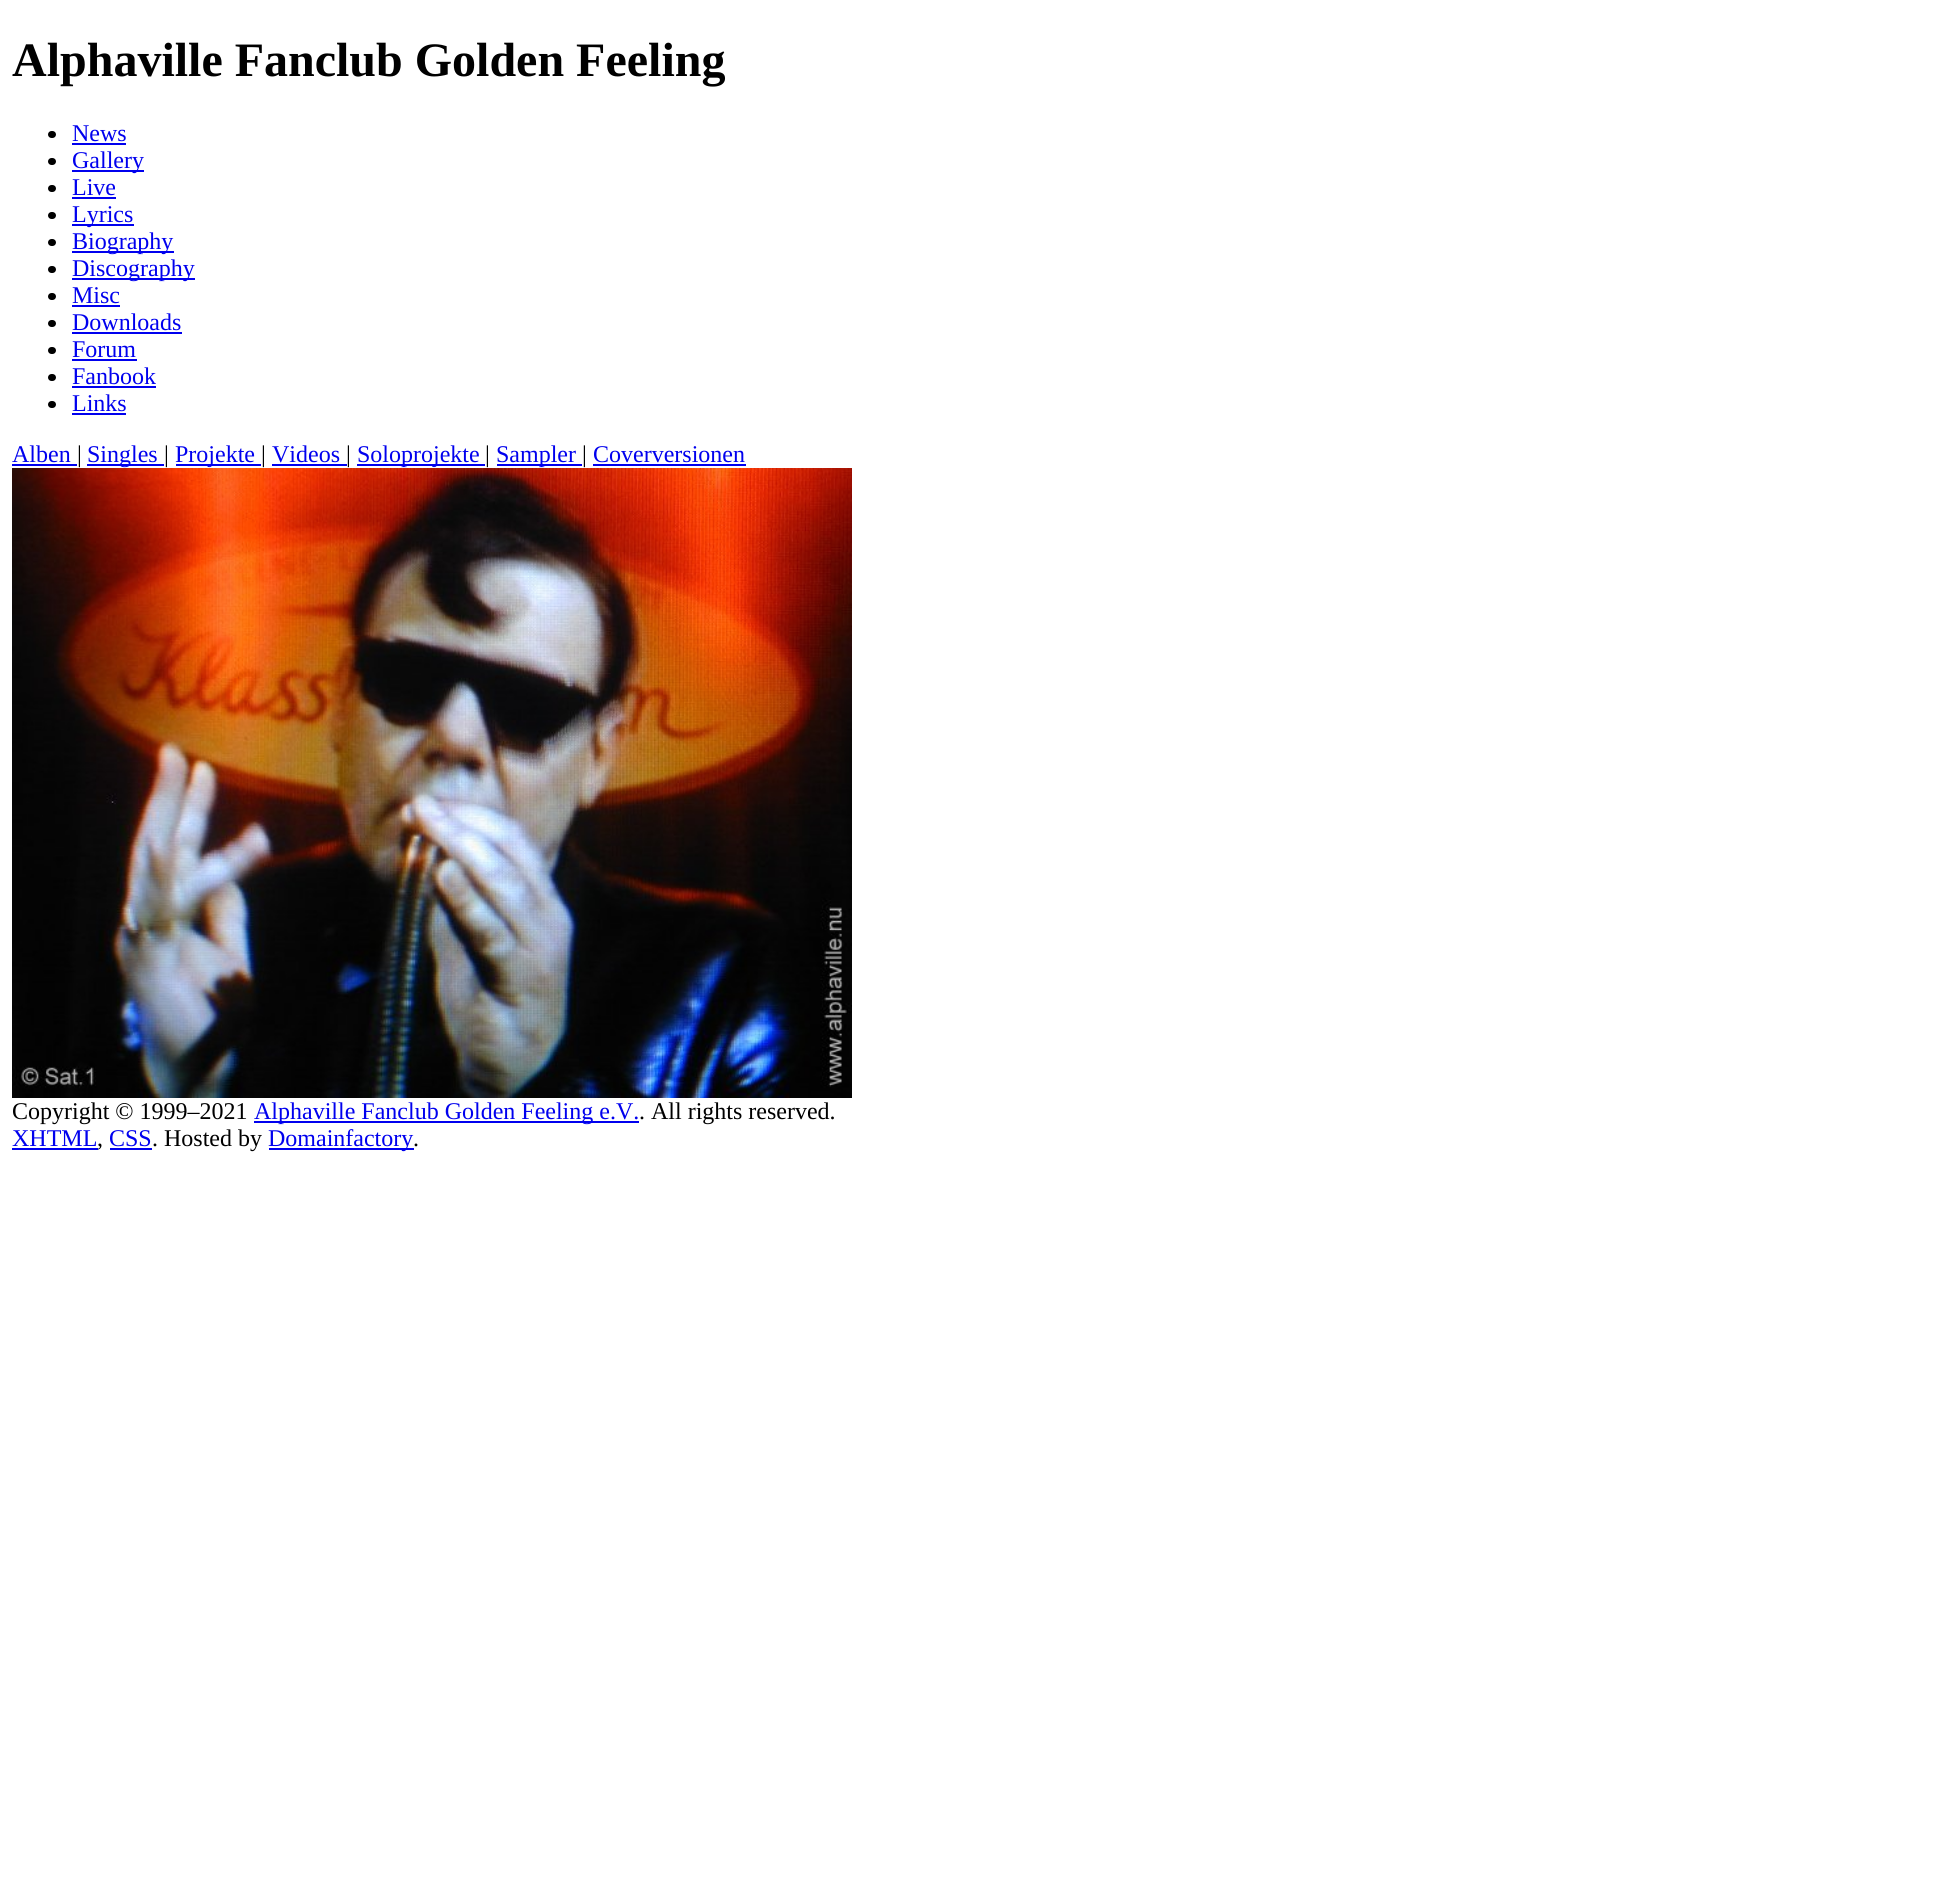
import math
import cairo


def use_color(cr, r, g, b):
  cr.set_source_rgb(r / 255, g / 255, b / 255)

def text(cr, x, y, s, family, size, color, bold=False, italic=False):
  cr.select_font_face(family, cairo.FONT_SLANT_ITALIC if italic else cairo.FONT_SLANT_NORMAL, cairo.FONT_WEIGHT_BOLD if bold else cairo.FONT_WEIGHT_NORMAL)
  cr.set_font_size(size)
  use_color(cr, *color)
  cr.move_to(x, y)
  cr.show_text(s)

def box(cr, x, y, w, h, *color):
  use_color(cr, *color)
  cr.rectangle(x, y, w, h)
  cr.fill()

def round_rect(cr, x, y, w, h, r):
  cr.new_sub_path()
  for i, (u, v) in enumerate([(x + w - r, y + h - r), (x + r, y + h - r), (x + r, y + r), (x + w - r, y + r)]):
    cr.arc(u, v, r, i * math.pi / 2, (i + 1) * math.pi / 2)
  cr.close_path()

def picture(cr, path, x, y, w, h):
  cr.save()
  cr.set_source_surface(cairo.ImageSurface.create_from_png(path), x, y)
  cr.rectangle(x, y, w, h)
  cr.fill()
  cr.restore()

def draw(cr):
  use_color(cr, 255, 255, 255)
  cr.paint()
  use_color(cr, 0, 0, 0)
  round_rect(cr, 48, 131, 8, 7, 3.5)
  cr.fill()
  box(cr, 72, 143, 54, 2, 0, 0, 238)
  use_color(cr, 0, 0, 0)
  round_rect(cr, 48, 158, 8, 7, 3.5)
  cr.fill()
  box(cr, 72, 170, 72, 2, 0, 0, 238)
  use_color(cr, 0, 0, 0)
  round_rect(cr, 48, 185, 8, 7, 3.5)
  cr.fill()
  box(cr, 72, 197, 44, 2, 0, 0, 238)
  use_color(cr, 0, 0, 0)
  round_rect(cr, 48, 212, 8, 7, 3.5)
  cr.fill()
  box(cr, 72, 224, 62, 2, 0, 0, 238)
  use_color(cr, 0, 0, 0)
  round_rect(cr, 48, 239, 8, 7, 3.5)
  cr.fill()
  box(cr, 72, 251, 102, 2, 0, 0, 238)
  use_color(cr, 0, 0, 0)
  round_rect(cr, 48, 266, 8, 7, 3.5)
  cr.fill()
  box(cr, 72, 278, 123, 2, 0, 0, 238)
  use_color(cr, 0, 0, 0)
  round_rect(cr, 48, 293, 8, 7, 3.5)
  cr.fill()
  box(cr, 72, 305, 48, 2, 0, 0, 238)
  use_color(cr, 0, 0, 0)
  round_rect(cr, 48, 320, 8, 7, 3.5)
  cr.fill()
  box(cr, 72, 332, 110, 2, 0, 0, 238)
  use_color(cr, 0, 0, 0)
  round_rect(cr, 48, 347, 8, 7, 3.5)
  cr.fill()
  box(cr, 72, 359, 65, 2, 0, 0, 238)
  use_color(cr, 0, 0, 0)
  round_rect(cr, 48, 374, 8, 7, 3.5)
  cr.fill()
  box(cr, 72, 386, 84, 2, 0, 0, 238)
  use_color(cr, 0, 0, 0)
  round_rect(cr, 48, 401, 8, 7, 3.5)
  cr.fill()
  box(cr, 72, 413, 54, 2, 0, 0, 238)
  box(cr, 12, 464, 65, 2, 0, 0, 238)
  box(cr, 87, 464, 77, 2, 0, 0, 238)
  box(cr, 176, 464, 85, 2, 0, 0, 238)
  box(cr, 272, 464, 75, 2, 0, 0, 238)
  box(cr, 357, 464, 128, 2, 0, 0, 238)
  box(cr, 497, 464, 85, 2, 0, 0, 238)
  box(cr, 593, 464, 153, 2, 0, 0, 238)
  picture(cr, "img_01.png", 12, 468, 840, 630)
  box(cr, 254, 1121, 385, 2, 0, 0, 238)
  box(cr, 12, 1148, 86, 2, 0, 0, 238)
  box(cr, 110, 1148, 42, 2, 0, 0, 238)
  box(cr, 269, 1148, 145, 2, 0, 0, 238)
  text(cr, 12, 76, "Alphaville Fanclub Golden Feeling", "Liberation Serif", 48, (0, 0, 0), bold=True)
  text(cr, 72, 141, "News", "Liberation Serif", 24, (0, 0, 238))
  text(cr, 72, 168, "Gallery", "Liberation Serif", 24, (0, 0, 238))
  text(cr, 72, 195, "Live", "Liberation Serif", 24, (0, 0, 238))
  text(cr, 72, 222, "Lyrics", "Liberation Serif", 24, (0, 0, 238))
  text(cr, 72, 249, "Biography", "Liberation Serif", 24, (0, 0, 238))
  text(cr, 72, 276, "Discography", "Liberation Serif", 24, (0, 0, 238))
  text(cr, 72, 303, "Misc", "Liberation Serif", 24, (0, 0, 238))
  text(cr, 72, 330, "Downloads", "Liberation Serif", 24, (0, 0, 238))
  text(cr, 72, 357, "Forum", "Liberation Serif", 24, (0, 0, 238))
  text(cr, 72, 384, "Fanbook", "Liberation Serif", 24, (0, 0, 238))
  text(cr, 72, 411, "Links", "Liberation Serif", 24, (0, 0, 238))
  text(cr, 12, 462, "Alben", "Liberation Serif", 24, (0, 0, 238))
  text(cr, 77, 462, "|", "Liberation Serif", 24, (0, 0, 0))
  text(cr, 87, 462, "Singles", "Liberation Serif", 24, (0, 0, 238))
  text(cr, 164, 462, "|", "Liberation Serif", 24, (0, 0, 0))
  text(cr, 175, 462, "Projekte", "Liberation Serif", 24, (0, 0, 238))
  text(cr, 261, 462, "|", "Liberation Serif", 24, (0, 0, 0))
  text(cr, 272, 462, "Videos", "Liberation Serif", 24, (0, 0, 238))
  text(cr, 346, 462, "|", "Liberation Serif", 24, (0, 0, 0))
  text(cr, 357, 462, "Soloprojekte", "Liberation Serif", 24, (0, 0, 238))
  text(cr, 485, 462, "|", "Liberation Serif", 24, (0, 0, 0))
  text(cr, 496, 462, "Sampler", "Liberation Serif", 24, (0, 0, 238))
  text(cr, 582, 462, "|", "Liberation Serif", 24, (0, 0, 0))
  text(cr, 593, 462, "Coverversionen", "Liberation Serif", 24, (0, 0, 238))
  text(cr, 12, 1119, "Copyright © 1999–2021", "Liberation Serif", 24, (0, 0, 0))
  text(cr, 254, 1119, "Alphaville Fanclub Golden Feeling e.V.", "Liberation Serif", 24, (0, 0, 238))
  text(cr, 639, 1119, ". All rights reserved.", "Liberation Serif", 24, (0, 0, 0))
  text(cr, 12, 1146, "XHTML", "Liberation Serif", 24, (0, 0, 238))
  text(cr, 97, 1146, ",", "Liberation Serif", 24, (0, 0, 0))
  text(cr, 109, 1146, "CSS", "Liberation Serif", 24, (0, 0, 238))
  text(cr, 152, 1146, ". Hosted by", "Liberation Serif", 24, (0, 0, 0))
  text(cr, 268, 1146, "Domainfactory", "Liberation Serif", 24, (0, 0, 238))
  text(cr, 413, 1146, ".", "Liberation Serif", 24, (0, 0, 0))


surface = cairo.ImageSurface(cairo.FORMAT_RGB24, 1953, 1884)
cr = cairo.Context(surface)
options = cairo.FontOptions()
options.set_hint_metrics(cairo.HINT_METRICS_OFF)
options.set_hint_style(cairo.HINT_STYLE_NONE)
cr.set_font_options(options)
cr.set_miter_limit(4)
draw(cr)
surface.write_to_png("out.png")
